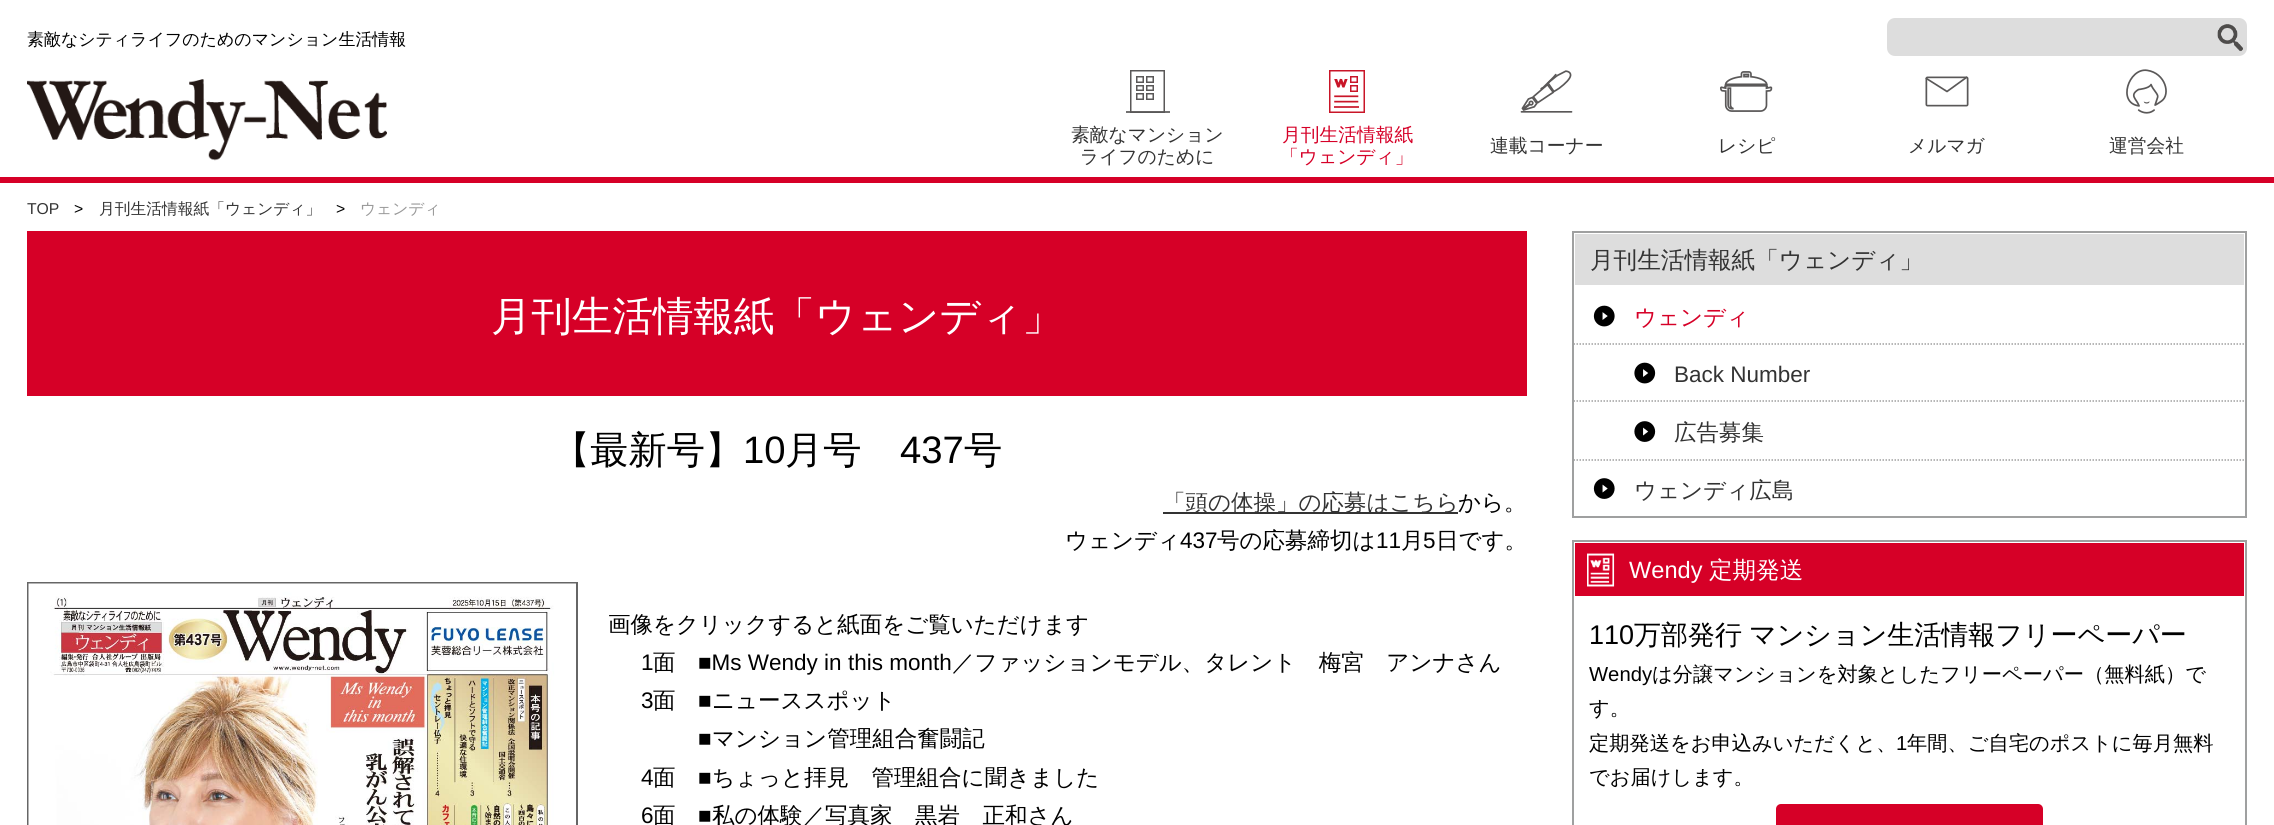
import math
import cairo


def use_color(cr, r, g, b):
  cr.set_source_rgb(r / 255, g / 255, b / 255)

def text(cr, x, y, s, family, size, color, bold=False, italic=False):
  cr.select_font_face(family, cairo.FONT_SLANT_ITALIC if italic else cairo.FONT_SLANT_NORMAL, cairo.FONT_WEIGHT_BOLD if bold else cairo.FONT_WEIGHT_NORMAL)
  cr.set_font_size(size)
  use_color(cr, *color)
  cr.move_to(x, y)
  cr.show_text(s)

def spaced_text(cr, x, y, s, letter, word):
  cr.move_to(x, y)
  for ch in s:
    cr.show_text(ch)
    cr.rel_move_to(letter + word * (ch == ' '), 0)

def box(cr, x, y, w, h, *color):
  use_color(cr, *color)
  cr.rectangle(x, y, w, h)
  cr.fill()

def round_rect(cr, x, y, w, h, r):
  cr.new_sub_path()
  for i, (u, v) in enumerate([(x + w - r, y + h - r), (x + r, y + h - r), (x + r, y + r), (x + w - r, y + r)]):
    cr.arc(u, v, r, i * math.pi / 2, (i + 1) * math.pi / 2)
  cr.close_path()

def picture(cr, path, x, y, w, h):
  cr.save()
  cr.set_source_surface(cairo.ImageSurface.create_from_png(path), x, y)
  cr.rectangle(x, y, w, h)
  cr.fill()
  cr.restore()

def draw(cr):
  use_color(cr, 255, 255, 255)
  cr.paint()
  box(cr, 0, 177, 2274, 6, 214, 0, 39)
  picture(cr, "img_01.png", 27, 79, 360, 82)
  use_color(cr, 221, 221, 221)
  round_rect(cr, 1887, 18, 360, 38, 8)
  cr.fill()
  picture(cr, "img_02.png", 2217, 24, 26, 28)
  cr.rectangle(1130.75, 70.75, 33.5, 41.5)
  use_color(cr, 90, 88, 88)
  cr.set_line_width(1.5)
  cr.stroke()
  cr.rectangle(1136.75, 76.75, 6.5, 5.5)
  cr.stroke()
  cr.rectangle(1146.75, 76.75, 6.5, 5.5)
  cr.stroke()
  cr.rectangle(1136.75, 85.75, 6.5, 4.5)
  cr.stroke()
  cr.rectangle(1146.75, 85.75, 6.5, 4.5)
  cr.stroke()
  cr.rectangle(1136.75, 93.75, 6.5, 5.5)
  cr.stroke()
  cr.rectangle(1146.75, 93.75, 6.5, 5.5)
  cr.stroke()
  cr.set_source_rgba(0.353, 0.345, 0.345, 0.85)
  cr.rectangle(1126, 111, 44, 2)
  cr.fill()
  picture(cr, "img_03.png", 1329, 70, 36, 43)
  picture(cr, "img_04.png", 1520, 70, 53, 43)
  picture(cr, "img_05.png", 1720, 71, 53, 41)
  picture(cr, "img_06.png", 1925, 76, 44, 31)
  picture(cr, "img_07.png", 2126, 69, 41, 45)
  box(cr, 27, 231, 1500, 165, 214, 0, 39)
  box(cr, 1163, 512, 295, 2, 51, 51, 51)
  cr.rectangle(28, 583, 549, 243)
  use_color(cr, 102, 102, 102)
  cr.set_line_width(2)
  cr.stroke()
  picture(cr, "img_08.png", 28, 583, 548, 242)
  cr.rectangle(1573, 232, 673, 285)
  use_color(cr, 159, 160, 160)
  cr.stroke()
  box(cr, 1575, 234, 669, 51, 221, 221, 221)
  picture(cr, "img_09.png", 1593, 305, 22, 22)
  cr.new_path()
  cr.move_to(1573.5, 344)
  cr.line_to(2245.5, 344)
  use_color(cr, 159, 160, 160)
  cr.set_line_width(1.5)
  cr.set_dash([1.5, 1.5])
  cr.stroke()
  picture(cr, "img_10.png", 1634, 362, 22, 22)
  cr.new_path()
  cr.move_to(1573.5, 401)
  cr.line_to(2245.5, 401)
  cr.stroke()
  picture(cr, "img_11.png", 1634, 421, 22, 21)
  cr.new_path()
  cr.move_to(1573.5, 460)
  cr.line_to(2245.5, 460)
  cr.stroke()
  picture(cr, "img_12.png", 1593, 478, 22, 21)
  cr.rectangle(1573, 541, 673, 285)
  cr.set_line_width(2)
  cr.set_dash([])
  cr.stroke()
  box(cr, 1575, 543, 669, 53, 214, 0, 39)
  picture(cr, "img_13.png", 1587, 553, 28, 34)
  round_rect(cr, 1776, 804, 267, 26, 5)
  cr.fill()
  text(cr, 27, 45, "素敵なシティライフのためのマンション生活情報", "WenQuanYi Zen Hei Medium", 16.95, (0, 0, 0))
  text(cr, 1071, 141, "素敵なマンション", "WenQuanYi Zen Hei Medium", 18.75, (51, 51, 51))
  text(cr, 1080, 163, "ライフのために", "WenQuanYi Zen Hei Medium", 18.75, (51, 51, 51))
  text(cr, 1282, 141, "月刊生活情報紙", "WenQuanYi Zen Hei Medium", 18.75, (214, 0, 39))
  text(cr, 1280, 163, "「ウェンディ」", "WenQuanYi Zen Hei Medium", 18.75, (214, 0, 39))
  text(cr, 1490, 152, "連載コーナー", "WenQuanYi Zen Hei Medium", 18.75, (51, 51, 51))
  text(cr, 1718, 152, "レシピ", "WenQuanYi Zen Hei Medium", 18.75, (51, 51, 51))
  text(cr, 1908, 152, "メルマガ", "WenQuanYi Zen Hei Medium", 18.75, (51, 51, 51))
  text(cr, 2109, 152, "運営会社", "WenQuanYi Zen Hei Medium", 18.75, (51, 51, 51))
  text(cr, 27, 214, "TOP", "Liberation Sans", 15.75, (51, 51, 51))
  text(cr, 74, 214, ">", "Liberation Sans", 15.75, (0, 0, 0))
  text(cr, 99, 214, "月刊生活情報紙「ウェンディ」", "WenQuanYi Zen Hei Medium", 15.75, (51, 51, 51))
  text(cr, 336, 214, ">", "Liberation Sans", 15.75, (0, 0, 0))
  text(cr, 360, 214, "ウェンディ", "WenQuanYi Zen Hei Medium", 15.75, (153, 153, 153))
  text(cr, 491, 330, "月刊生活情報紙「ウェンディ」", "WenQuanYi Zen Hei Medium", 40.5, (255, 255, 255))
  text(cr, 552, 463, "【最新号】", "WenQuanYi Zen Hei Medium", 38.25, (0, 0, 0))
  text(cr, 743, 463, "10", "Liberation Sans", 38.25, (0, 0, 0))
  text(cr, 785, 463, "月号", "WenQuanYi Zen Hei Medium", 38.25, (0, 0, 0))
  text(cr, 900, 463, "437", "Liberation Sans", 38.25, (0, 0, 0))
  text(cr, 964, 463, "号", "WenQuanYi Zen Hei Medium", 38.25, (0, 0, 0))
  text(cr, 1163, 510, "「頭の体操」の応募はこちら", "WenQuanYi Zen Hei Medium", 22.5, (51, 51, 51))
  text(cr, 1458, 510, "から。", "WenQuanYi Zen Hei Medium", 22.5, (0, 0, 0))
  text(cr, 1065, 548, "ウェンディ", "WenQuanYi Zen Hei Medium", 22.5, (0, 0, 0))
  text(cr, 1180, 548, "437", "Liberation Sans", 22.5, (0, 0, 0))
  text(cr, 1217, 548, "号の応募締切は", "WenQuanYi Zen Hei Medium", 22.5, (0, 0, 0))
  text(cr, 1376, 548, "11", "Liberation Sans", 22.5, (0, 0, 0))
  text(cr, 1401, 548, "月", "WenQuanYi Zen Hei Medium", 22.5, (0, 0, 0))
  text(cr, 1423, 548, "5", "Liberation Sans", 22.5, (0, 0, 0))
  text(cr, 1436, 548, "日です。", "WenQuanYi Zen Hei Medium", 22.5, (0, 0, 0))
  text(cr, 608, 632, "画像をクリックすると紙面をご覧いただけます", "WenQuanYi Zen Hei Medium", 22.5, (0, 0, 0))
  text(cr, 641, 670, "1", "Liberation Sans", 22.5, (0, 0, 0))
  text(cr, 653, 670, "面", "WenQuanYi Zen Hei Medium", 22.5, (0, 0, 0))
  text(cr, 698, 670, "■Ms Wendy in this month", "Liberation Sans", 22.5, (0, 0, 0))
  text(cr, 952, 670, "／ファッションモデル、タレント　梅宮　アンナさん", "WenQuanYi Zen Hei Medium", 22.5, (0, 0, 0))
  text(cr, 641, 708, "3", "Liberation Sans", 22.5, (0, 0, 0))
  text(cr, 653, 708, "面", "WenQuanYi Zen Hei Medium", 22.5, (0, 0, 0))
  text(cr, 698, 708, "■", "Liberation Sans", 22.5, (0, 0, 0))
  text(cr, 712, 708, "ニューススポット", "WenQuanYi Zen Hei Medium", 22.5, (0, 0, 0))
  text(cr, 698, 746, "■", "Liberation Sans", 22.5, (0, 0, 0))
  text(cr, 712, 746, "マンション管理組合奮闘記", "WenQuanYi Zen Hei Medium", 22.5, (0, 0, 0))
  text(cr, 641, 785, "4", "Liberation Sans", 22.5, (0, 0, 0))
  text(cr, 653, 785, "面", "WenQuanYi Zen Hei Medium", 22.5, (0, 0, 0))
  text(cr, 698, 785, "■", "Liberation Sans", 22.5, (0, 0, 0))
  text(cr, 712, 785, "ちょっと拝見　管理組合に聞きました", "WenQuanYi Zen Hei Medium", 22.5, (0, 0, 0))
  text(cr, 641, 823, "6", "Liberation Sans", 22.5, (0, 0, 0))
  text(cr, 653, 823, "面", "WenQuanYi Zen Hei Medium", 22.5, (0, 0, 0))
  text(cr, 698, 823, "■", "Liberation Sans", 22.5, (0, 0, 0))
  text(cr, 712, 823, "私の体験／写真家　黒岩　正和さん", "WenQuanYi Zen Hei Medium", 22.5, (0, 0, 0))
  text(cr, 1590, 268, "月刊生活情報紙「ウェンディ」", "WenQuanYi Zen Hei Medium", 23.6, (51, 51, 51))
  text(cr, 1634, 325, "ウェンディ", "WenQuanYi Zen Hei Medium", 22.5, (214, 0, 39))
  text(cr, 1674, 382, "Back Number", "Liberation Sans", 22.5, (51, 51, 51))
  text(cr, 1674, 440, "広告募集", "WenQuanYi Zen Hei Medium", 22.5, (51, 51, 51))
  text(cr, 1634, 498, "ウェンディ広島", "WenQuanYi Zen Hei Medium", 22.5, (51, 51, 51))
  text(cr, 1629, 578, "Wendy", "Liberation Sans", 23.6, (255, 255, 255))
  text(cr, 1709, 578, "定期発送", "WenQuanYi Zen Hei Medium", 23.6, (255, 255, 255))
  text(cr, 1589, 644, "110", "Liberation Sans", 27, (0, 0, 0))
  cr.select_font_face("WenQuanYi Zen Hei Medium")
  spaced_text(cr, 1634, 644, "万部発行 マンション生活情報フリーペーパー", 0, -1)
  text(cr, 1589, 681, "Wendy", "Liberation Sans", 20.25, (0, 0, 0))
  text(cr, 1652, 681, "は分譲マンションを対象としたフリーペーパー（無料紙）で", "WenQuanYi Zen Hei Medium", 20.25, (0, 0, 0))
  text(cr, 1589, 715, "す。", "WenQuanYi Zen Hei Medium", 20.25, (0, 0, 0))
  text(cr, 1589, 750, "定期発送をお申込みいただくと、", "WenQuanYi Zen Hei Medium", 20.25, (0, 0, 0))
  text(cr, 1896, 750, "1", "Liberation Sans", 20.25, (0, 0, 0))
  text(cr, 1907, 750, "年間、ご自宅のポストに毎月無料", "WenQuanYi Zen Hei Medium", 20.25, (0, 0, 0))
  text(cr, 1589, 784, "でお届けします。", "WenQuanYi Zen Hei Medium", 20.25, (0, 0, 0))


surface = cairo.ImageSurface(cairo.FORMAT_RGB24, 2274, 825)
cr = cairo.Context(surface)
options = cairo.FontOptions()
options.set_hint_metrics(cairo.HINT_METRICS_OFF)
options.set_hint_style(cairo.HINT_STYLE_NONE)
cr.set_font_options(options)
cr.set_miter_limit(4)
draw(cr)
surface.write_to_png("out.png")
